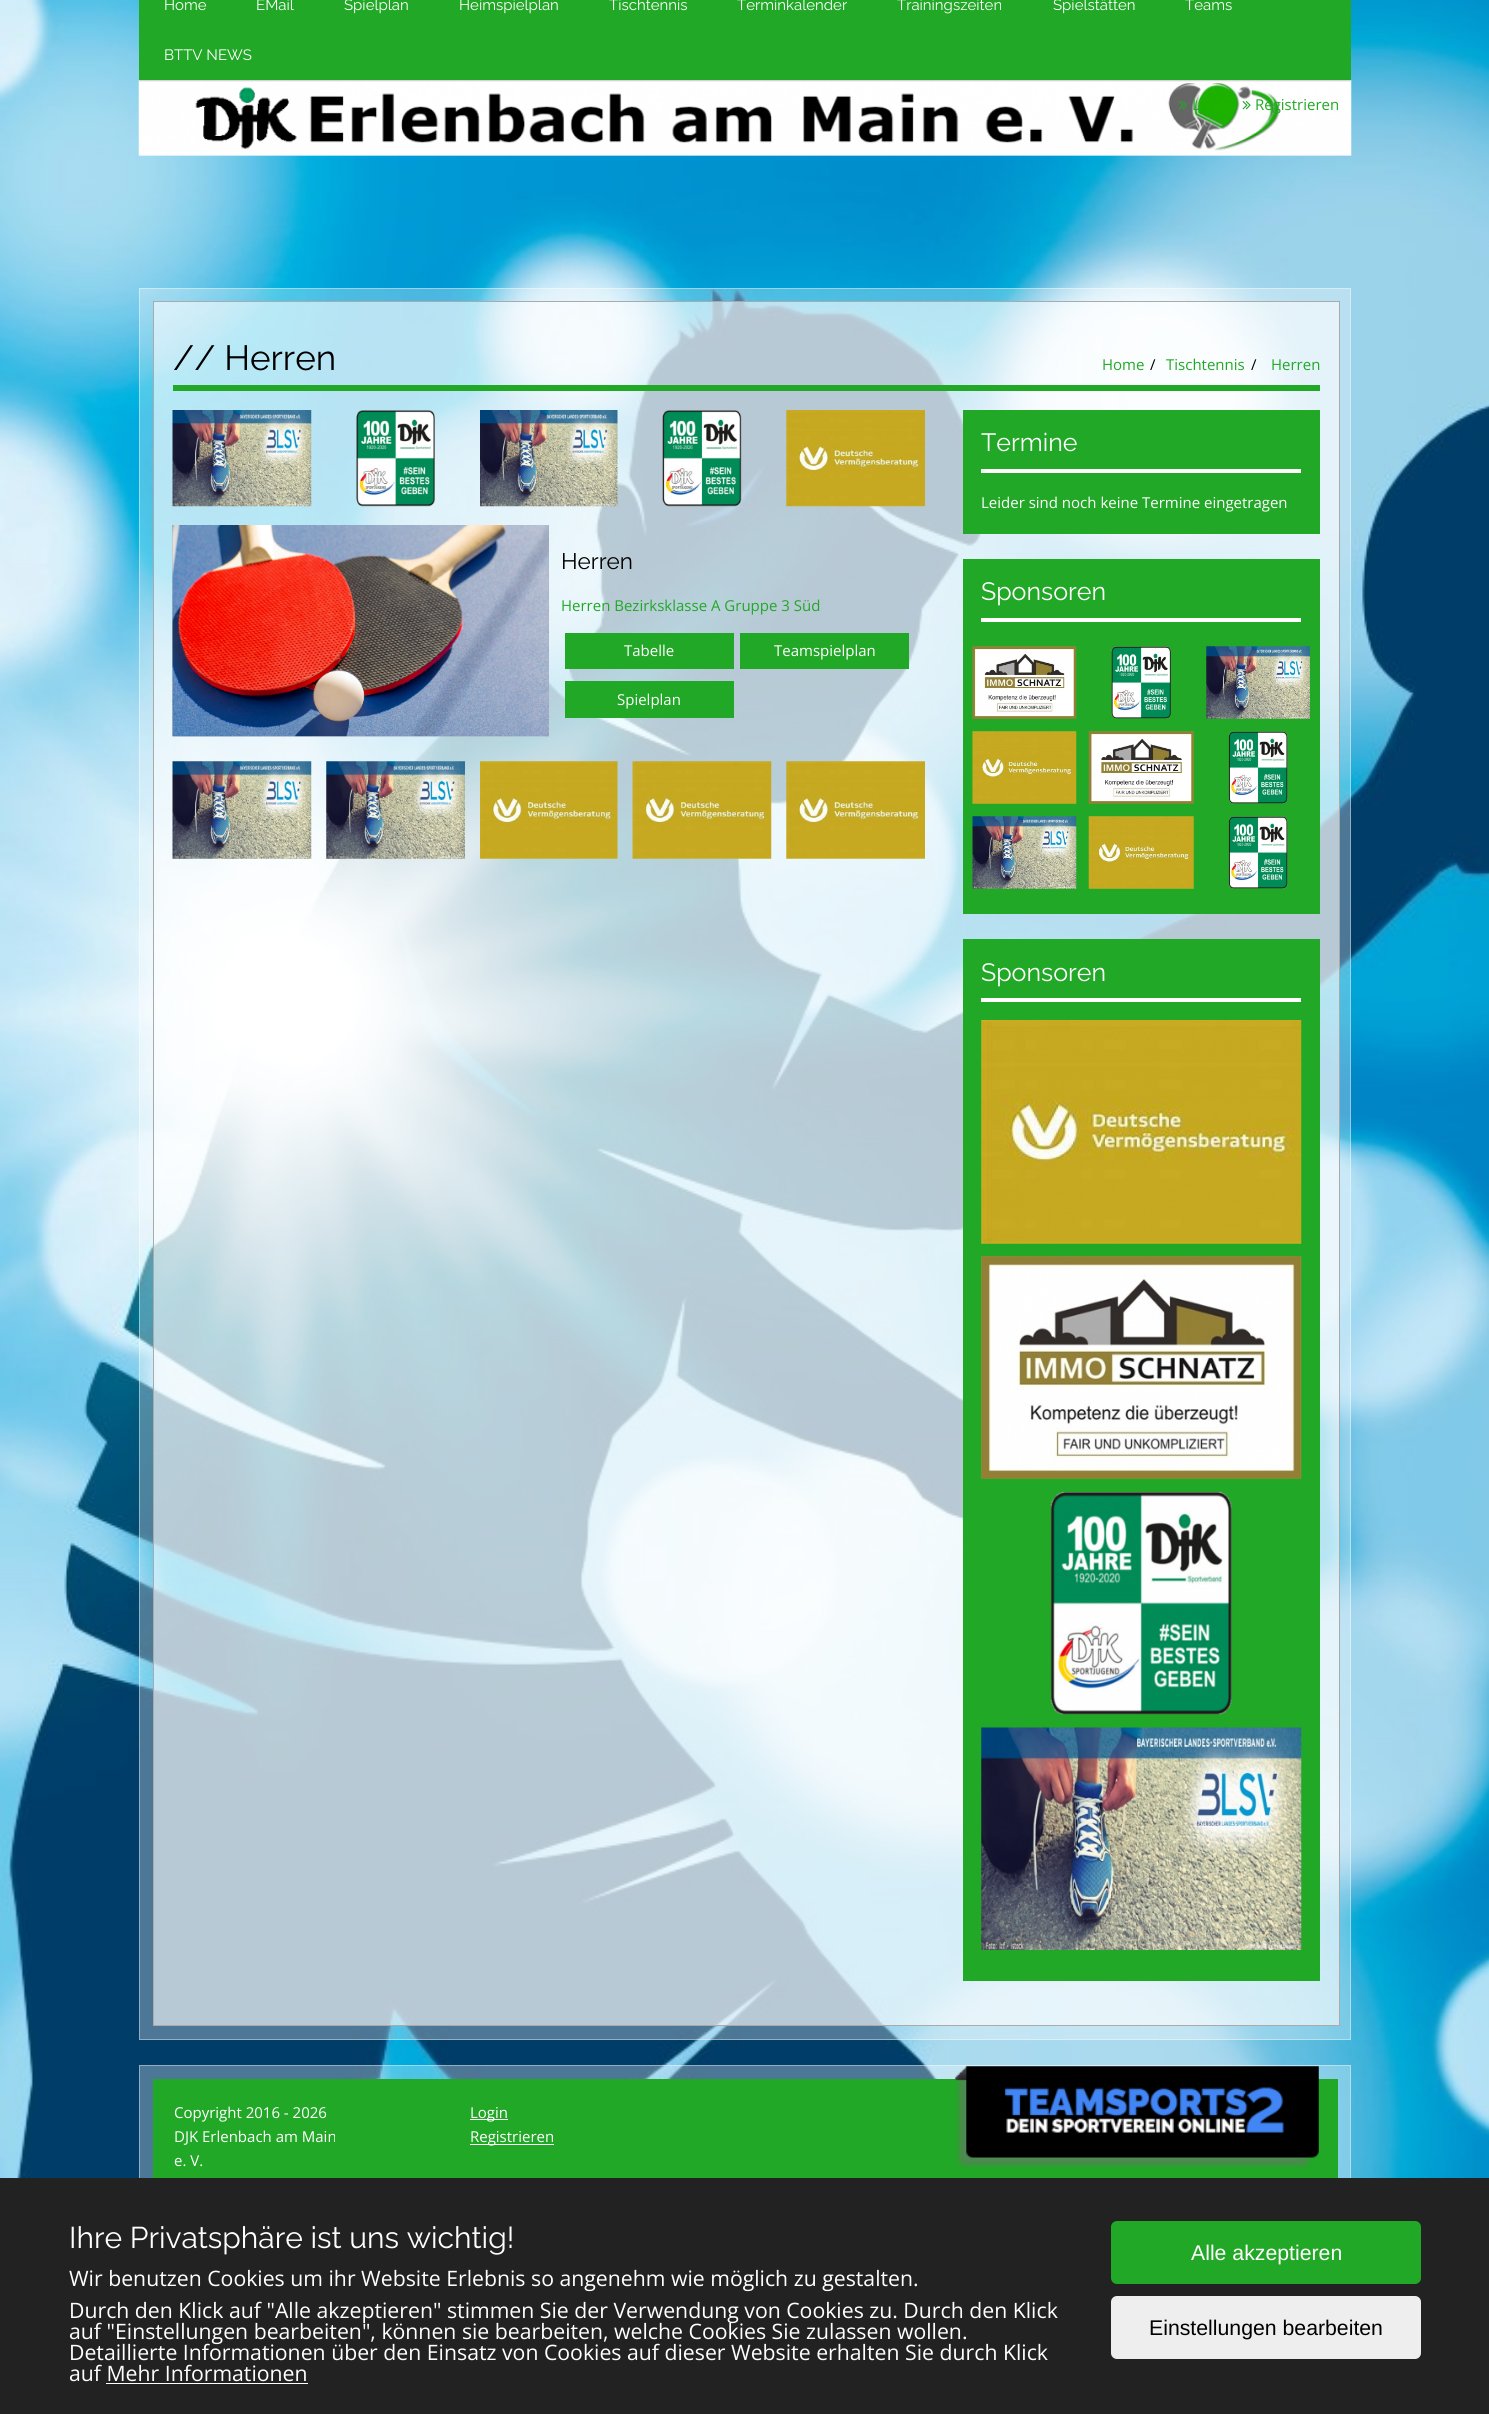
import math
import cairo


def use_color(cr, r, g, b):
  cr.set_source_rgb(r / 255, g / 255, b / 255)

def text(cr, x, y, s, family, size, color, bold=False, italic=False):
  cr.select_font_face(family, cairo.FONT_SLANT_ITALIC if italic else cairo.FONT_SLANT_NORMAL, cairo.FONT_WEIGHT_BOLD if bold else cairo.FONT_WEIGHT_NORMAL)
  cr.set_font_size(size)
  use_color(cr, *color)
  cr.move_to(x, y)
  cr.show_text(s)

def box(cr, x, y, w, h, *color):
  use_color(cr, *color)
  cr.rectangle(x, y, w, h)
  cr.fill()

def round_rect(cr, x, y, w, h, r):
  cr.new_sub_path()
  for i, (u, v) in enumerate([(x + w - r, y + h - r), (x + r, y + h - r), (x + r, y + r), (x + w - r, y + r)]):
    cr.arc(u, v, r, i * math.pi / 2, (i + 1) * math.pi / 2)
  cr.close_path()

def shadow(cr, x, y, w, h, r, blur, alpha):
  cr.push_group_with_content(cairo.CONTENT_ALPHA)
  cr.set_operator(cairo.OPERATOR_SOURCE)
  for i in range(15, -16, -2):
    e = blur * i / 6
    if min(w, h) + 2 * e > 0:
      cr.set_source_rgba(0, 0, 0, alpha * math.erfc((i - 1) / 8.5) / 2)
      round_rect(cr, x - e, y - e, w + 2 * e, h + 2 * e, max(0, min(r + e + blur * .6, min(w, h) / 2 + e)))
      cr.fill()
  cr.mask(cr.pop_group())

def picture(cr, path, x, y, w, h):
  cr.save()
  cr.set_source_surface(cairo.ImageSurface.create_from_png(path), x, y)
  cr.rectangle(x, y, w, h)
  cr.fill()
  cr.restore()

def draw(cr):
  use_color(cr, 255, 255, 255)
  cr.paint()
  picture(cr, "img_01.png", 0, 0, 1489, 2178)
  box(cr, 139, 0, 1212, 80, 33, 168, 38)
  picture(cr, "img_02.png", 138, 80, 1214, 76)
  cr.save()
  cr.rectangle(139, 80, 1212, 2)
  cr.clip()
  use_color(cr, 0, 0, 0)
  shadow(cr, 139, -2, 1212, 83, 0, 0.5, 0.2)
  cr.restore()
  picture(cr, "img_03.png", 1179, 101, 8, 9)
  picture(cr, "img_04.png", 1242, 101, 9, 9)
  cr.set_source_rgba(1, 1, 1, 0.3)
  cr.rectangle(139, 288, 1212, 1752)
  cr.fill()
  cr.rectangle(139.5, 288.5, 1211, 1751)
  cr.set_source_rgba(1, 1, 1, 0.4)
  cr.set_line_width(1)
  cr.stroke()
  cr.set_source_rgba(1, 1, 1, 0.6)
  cr.rectangle(153.5, 301.5, 1186, 1724)
  cr.fill_preserve()
  use_color(cr, 170, 170, 170)
  cr.stroke()
  box(cr, 173, 385, 1147, 6, 33, 168, 38)
  picture(cr, "img_05.png", 172, 410, 140, 97)
  picture(cr, "img_06.png", 356, 410, 79, 97)
  picture(cr, "img_07.png", 480, 410, 138, 97)
  picture(cr, "img_08.png", 662, 410, 80, 97)
  picture(cr, "img_09.png", 786, 410, 139, 97)
  picture(cr, "img_10.png", 172, 525, 377, 212)
  picture(cr, "img_11.png", 172, 525, 377, 212)
  box(cr, 565, 633, 169, 36, 33, 168, 38)
  box(cr, 740, 633, 169, 36, 33, 168, 38)
  box(cr, 565, 681, 169, 37, 33, 168, 38)
  picture(cr, "img_12.png", 172, 761, 140, 98)
  picture(cr, "img_13.png", 326, 761, 139, 98)
  picture(cr, "img_14.png", 480, 761, 138, 98)
  picture(cr, "img_15.png", 632, 761, 140, 98)
  picture(cr, "img_16.png", 786, 761, 139, 98)
  box(cr, 963, 410, 357, 124, 33, 168, 38)
  box(cr, 981, 469, 320, 4, 255, 255, 255)
  box(cr, 963, 559, 357, 355, 33, 168, 38)
  box(cr, 981, 618, 320, 4, 255, 255, 255)
  picture(cr, "img_17.png", 972, 646, 105, 73)
  picture(cr, "img_18.png", 1111, 646, 60, 73)
  picture(cr, "img_19.png", 1206, 646, 104, 73)
  picture(cr, "img_20.png", 972, 731, 105, 73)
  picture(cr, "img_21.png", 1088, 731, 106, 73)
  picture(cr, "img_22.png", 1228, 731, 60, 73)
  picture(cr, "img_23.png", 972, 816, 105, 73)
  picture(cr, "img_24.png", 1088, 816, 106, 73)
  picture(cr, "img_22.png", 1228, 816, 60, 73)
  box(cr, 963, 939, 357, 1042, 33, 168, 38)
  box(cr, 981, 998, 320, 4, 255, 255, 255)
  picture(cr, "img_25.png", 981, 1020, 321, 224)
  picture(cr, "img_26.png", 981, 1256, 321, 223)
  picture(cr, "img_27.png", 1050, 1491, 183, 224)
  picture(cr, "img_28.png", 981, 1727, 321, 223)
  cr.set_source_rgba(1, 1, 1, 0.3)
  cr.rectangle(139, 2065, 1212, 113)
  cr.fill()
  cr.rectangle(139.5, 2065.5, 1211, 202)
  cr.set_source_rgba(1, 1, 1, 0.4)
  cr.stroke()
  box(cr, 153, 2079, 1185, 99, 33, 168, 38)
  box(cr, 470, 2119, 38, 1, 255, 255, 255)
  box(cr, 470, 2144, 84, 1, 255, 255, 255)
  picture(cr, "img_29.png", 954, 2066, 365, 102)
  box(cr, 0, 2178, 1489, 236, 34, 34, 34)
  box(cr, 106, 2383, 202, 1, 255, 255, 255)
  use_color(cr, 33, 168, 38)
  round_rect(cr, 1111, 2221, 310, 63, 6)
  cr.fill()
  use_color(cr, 238, 238, 238)
  round_rect(cr, 1111, 2296, 310, 63, 6)
  cr.fill()
  text(cr, 164, 10, "Home", "Raleway", 15, (255, 255, 255))
  text(cr, 256, 10, "EMail", "Raleway", 15, (255, 255, 255))
  text(cr, 344, 10, "Spielplan", "Raleway", 15, (255, 255, 255))
  text(cr, 459, 10, "Heimspielplan", "Raleway", 15, (255, 255, 255))
  text(cr, 609, 10, "Tischtennis", "Raleway", 15, (255, 255, 255))
  text(cr, 737, 10, "Terminkalender", "Raleway", 15, (255, 255, 255))
  text(cr, 897, 10, "Trainingszeiten", "Raleway", 15, (255, 255, 255))
  text(cr, 1053, 10, "Spielstätten", "Raleway", 15, (255, 255, 255))
  text(cr, 1185, 10, "Teams", "Raleway", 15, (255, 255, 255))
  text(cr, 164, 60, "BTTV NEWS", "Raleway", 15, (255, 255, 255))
  text(cr, 1192, 110, "L", "Open Sans", 15, (33, 168, 38))
  text(cr, 1255, 110, "Registrieren", "Open Sans", 15, (33, 168, 38))
  text(cr, 173, 370, "// Herren", "Raleway", 35, (0, 0, 0))
  text(cr, 1102, 370, "Home", "Open Sans", 15, (33, 168, 38))
  text(cr, 1150, 370, "/", "Open Sans", 15, (0, 0, 0))
  text(cr, 1166, 370, "Tischtennis", "Open Sans", 15, (33, 168, 38))
  text(cr, 1251, 370, "/", "Open Sans", 15, (0, 0, 0))
  text(cr, 1271, 370, "Herren", "Open Sans", 15, (33, 168, 38))
  text(cr, 561, 569, "Herren", "Raleway", 22.5, (0, 0, 0))
  text(cr, 561, 611, "Herren Bezirksklasse A Gruppe 3 Süd", "Open Sans", 15, (33, 168, 38))
  text(cr, 624, 656, "Tabelle", "Open Sans", 15, (255, 255, 255))
  text(cr, 774, 656, "Teamspielplan", "Open Sans", 15, (255, 255, 255))
  text(cr, 617, 705, "Spielplan", "Open Sans", 15, (255, 255, 255))
  text(cr, 981, 451, "Termine", "Raleway", 25, (255, 255, 255))
  text(cr, 981, 508, "Leider sind noch keine Termine eingetragen", "Open Sans", 15, (255, 255, 255))
  text(cr, 981, 600, "Sponsoren", "Raleway", 25, (255, 255, 255))
  text(cr, 981, 981, "Sponsoren", "Raleway", 25, (255, 255, 255))
  text(cr, 174, 2118, "Copyright 2016 - 2026", "Open Sans", 15, (255, 255, 255))
  text(cr, 174, 2142, "DJK Erlenbach am Main", "Open Sans", 15, (255, 255, 255))
  text(cr, 174, 2166, "e. V.", "Open Sans", 15, (255, 255, 255))
  text(cr, 470, 2118, "Login", "Open Sans", 15, (255, 255, 255))
  text(cr, 470, 2142, "Registrieren", "Open Sans", 15, (255, 255, 255))
  text(cr, 69, 2248, "Ihre Privatsphäre ist uns wichtig!", "Raleway", 30, (255, 255, 255))
  text(cr, 69, 2286, "Wir benutzen Cookies um ihr Website Erlebnis so angenehm wie möglich zu gestalten.", "Open Sans", 21.25, (255, 255, 255))
  text(cr, 69, 2318, "Durch den Klick auf \"Alle akzeptieren\" stimmen Sie der Verwendung von Cookies zu. Durch den Klick", "Open Sans", 21.25, (255, 255, 255))
  text(cr, 69, 2339, "auf \"Einstellungen bearbeiten\", können sie bearbeiten, welche Cookies Sie zulassen wollen.", "Open Sans", 21.25, (255, 255, 255))
  text(cr, 69, 2360, "Detaillierte Informationen über den Einsatz von Cookies auf dieser Website erhalten Sie durch Klick", "Open Sans", 21.25, (255, 255, 255))
  text(cr, 69, 2381, "auf Mehr Informationen", "Open Sans", 21.25, (255, 255, 255))
  text(cr, 1191, 2260, "Alle akzeptieren", "Liberation Sans", 21.25, (255, 255, 255))
  text(cr, 1149, 2335, "Einstellungen bearbeiten", "Liberation Sans", 21.25, (0, 0, 0))


surface = cairo.ImageSurface(cairo.FORMAT_RGB24, 1489, 2414)
cr = cairo.Context(surface)
options = cairo.FontOptions()
options.set_hint_metrics(cairo.HINT_METRICS_OFF)
options.set_hint_style(cairo.HINT_STYLE_NONE)
cr.set_font_options(options)
cr.set_miter_limit(4)
draw(cr)
surface.write_to_png("out.png")
